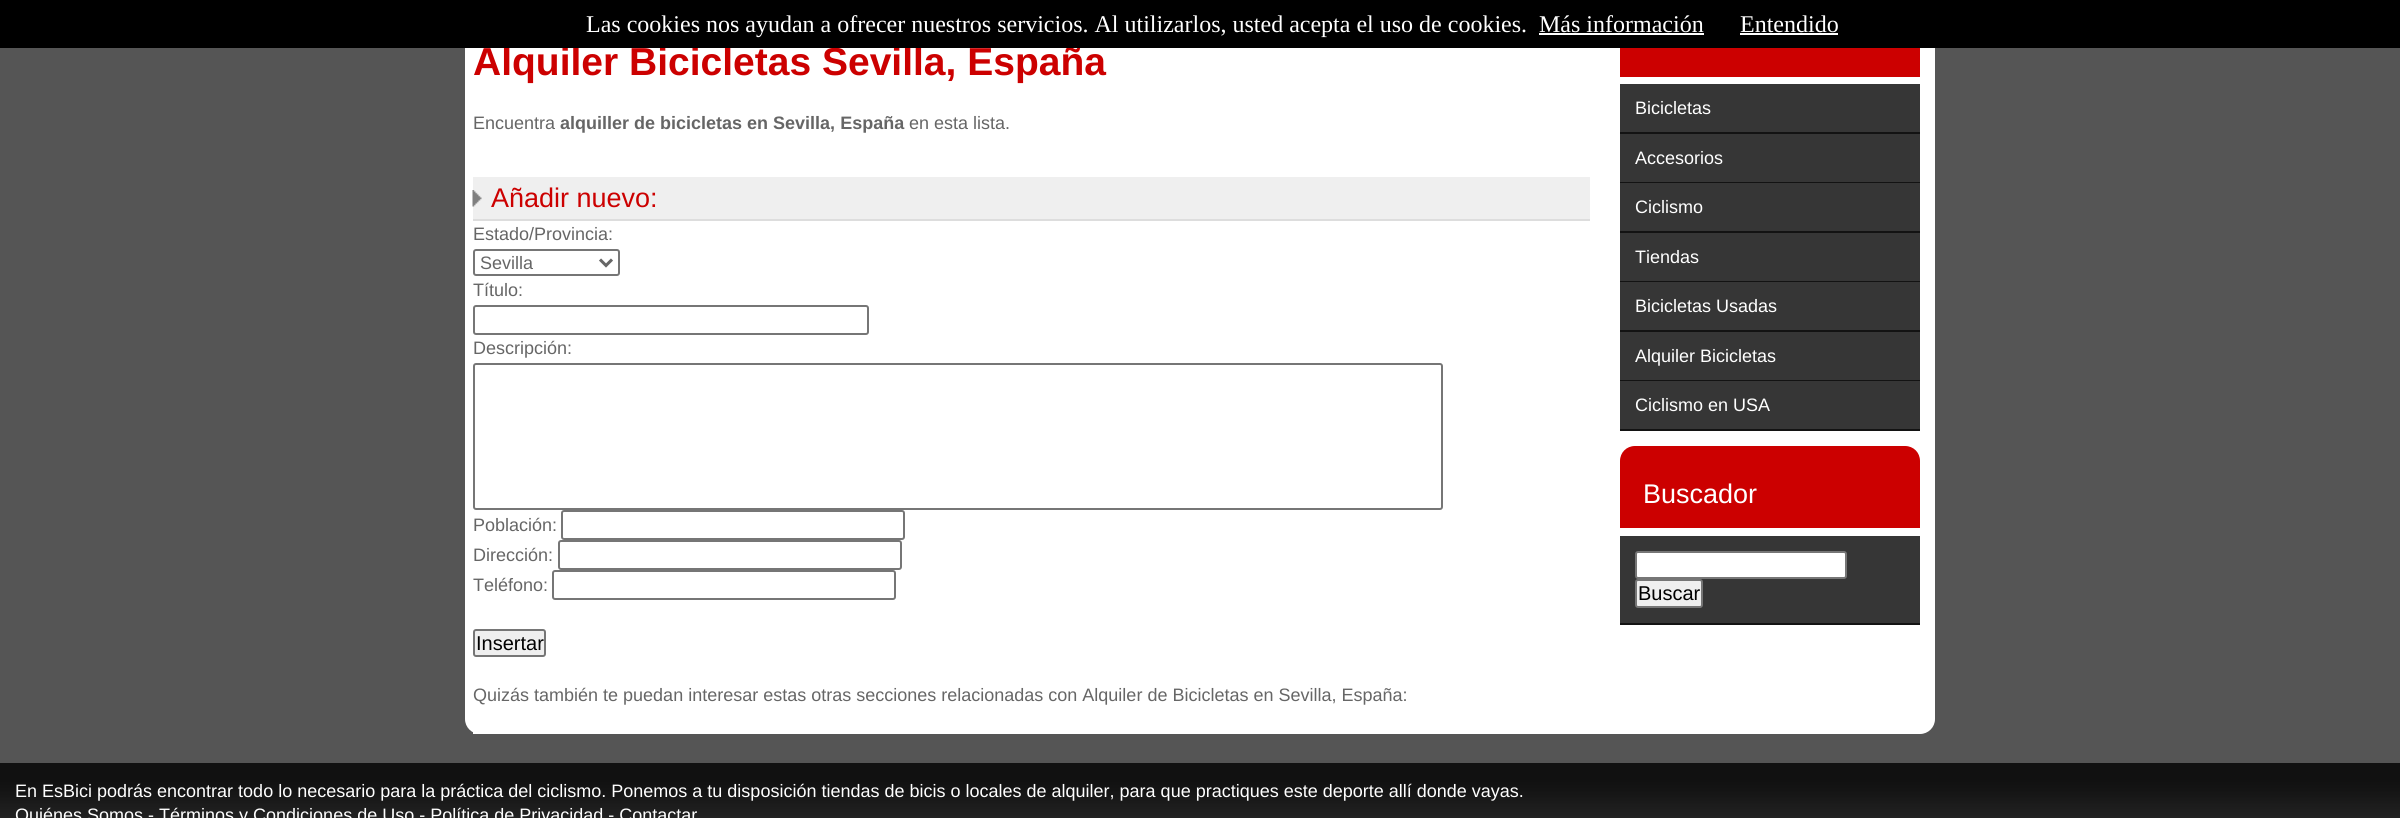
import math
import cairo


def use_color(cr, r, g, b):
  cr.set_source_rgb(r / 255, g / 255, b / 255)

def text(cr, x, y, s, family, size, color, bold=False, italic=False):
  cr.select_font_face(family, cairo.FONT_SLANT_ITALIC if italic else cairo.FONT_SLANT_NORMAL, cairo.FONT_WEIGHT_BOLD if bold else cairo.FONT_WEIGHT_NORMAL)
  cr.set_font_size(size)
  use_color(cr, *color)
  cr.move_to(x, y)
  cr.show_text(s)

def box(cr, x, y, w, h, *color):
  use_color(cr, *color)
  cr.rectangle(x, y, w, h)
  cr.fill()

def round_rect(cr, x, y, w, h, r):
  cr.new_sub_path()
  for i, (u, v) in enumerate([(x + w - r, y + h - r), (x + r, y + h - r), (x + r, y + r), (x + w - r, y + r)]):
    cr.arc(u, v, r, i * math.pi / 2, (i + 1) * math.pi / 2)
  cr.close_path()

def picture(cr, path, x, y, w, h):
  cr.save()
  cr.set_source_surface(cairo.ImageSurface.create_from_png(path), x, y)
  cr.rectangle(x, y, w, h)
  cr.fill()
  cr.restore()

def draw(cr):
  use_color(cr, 85, 85, 85)
  cr.paint()
  use_color(cr, 255, 255, 255)
  round_rect(cr, 465, -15, 1470, 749, 15)
  cr.fill()
  box(cr, 473, 732, 7, 2, 255, 255, 255)
  box(cr, 473, 177, 1117, 42, 239, 239, 239)
  picture(cr, "img_01.png", 472, 190, 10, 17)
  box(cr, 473, 219, 1117, 2, 221, 221, 221)
  round_rect(cr, 474, 250, 145, 25, 2)
  use_color(cr, 118, 118, 118)
  cr.stroke()
  cr.new_path()
  cr.move_to(600, 259.5)
  cr.line_to(606, 265.5)
  cr.line_to(612, 259.5)
  use_color(cr, 102, 102, 102)
  cr.set_line_width(3)
  cr.stroke()
  round_rect(cr, 474, 306, 394, 28, 2)
  use_color(cr, 118, 118, 118)
  cr.set_line_width(2)
  cr.stroke()
  round_rect(cr, 474, 364, 968, 145, 2)
  cr.stroke()
  round_rect(cr, 562, 511, 342, 28, 2)
  cr.stroke()
  round_rect(cr, 559, 541, 342, 28, 2)
  cr.stroke()
  round_rect(cr, 553, 571, 342, 28, 2)
  cr.stroke()
  use_color(cr, 239, 239, 239)
  round_rect(cr, 474, 630, 71, 26, 2)
  cr.fill_preserve()
  use_color(cr, 118, 118, 118)
  cr.stroke()
  box(cr, 1620, 48, 300, 29, 204, 0, 0)
  box(cr, 1620, 84, 300, 48, 54, 54, 54)
  box(cr, 1620, 132, 300, 2, 19, 19, 19)
  box(cr, 1620, 134, 300, 48, 54, 54, 54)
  box(cr, 1620, 182, 300, 1, 19, 19, 19)
  box(cr, 1620, 183, 300, 48, 54, 54, 54)
  box(cr, 1620, 231, 300, 2, 19, 19, 19)
  box(cr, 1620, 233, 300, 48, 54, 54, 54)
  box(cr, 1620, 281, 300, 1, 19, 19, 19)
  box(cr, 1620, 282, 300, 48, 54, 54, 54)
  box(cr, 1620, 330, 300, 2, 19, 19, 19)
  box(cr, 1620, 332, 300, 48, 54, 54, 54)
  box(cr, 1620, 380, 300, 1, 19, 19, 19)
  box(cr, 1620, 381, 300, 48, 54, 54, 54)
  box(cr, 1620, 429, 300, 2, 19, 19, 19)
  use_color(cr, 204, 0, 0)
  cr.new_path()
  cr.move_to(1635, 446)
  cr.line_to(1905, 446)
  cr.curve_to(1913.5, 446, 1920, 452.5, 1920, 461)
  cr.line_to(1920, 528)
  cr.line_to(1620, 528)
  cr.line_to(1620, 461)
  cr.curve_to(1620, 452.5, 1626.5, 446, 1635, 446)
  cr.close_path()
  cr.fill()
  box(cr, 1620, 536, 300, 87, 54, 54, 54)
  box(cr, 1620, 623, 300, 2, 19, 19, 19)
  use_color(cr, 255, 255, 255)
  round_rect(cr, 1636, 552, 210, 26, 2)
  cr.fill_preserve()
  use_color(cr, 118, 118, 118)
  cr.stroke()
  use_color(cr, 239, 239, 239)
  round_rect(cr, 1636, 580, 66, 27, 2)
  cr.fill_preserve()
  use_color(cr, 118, 118, 118)
  cr.stroke()
  picture(cr, "img_02.png", 0, 763, 2400, 55)
  text(cr, 473, 75, "Alquiler Bicicletas Sevilla, España", "Liberation Sans", 39, (204, 0, 0), bold=True)
  box(cr, 0, 0, 2400, 48, 0, 0, 0)
  text(cr, 1740, 32, "Entendido", "Liberation Serif", 24, (255, 255, 255))
  box(cr, 1740, 33, 98, 2, 255, 255, 255)
  text(cr, 1539, 32, "Más información", "Liberation Serif", 24, (255, 255, 255))
  box(cr, 1539, 33, 165, 2, 255, 255, 255)
  text(cr, 586, 32, "Las cookies nos ayudan a ofrecer nuestros servicios. Al utilizarlos, usted acepta el uso de cookies.", "Liberation Serif", 24, (255, 255, 255))
  text(cr, 473, 129, "Encuentra", "Liberation Sans", 18, (102, 102, 102))
  text(cr, 560, 129, "alquiller de bicicletas en Sevilla, España", "Liberation Sans", 18, (102, 102, 102), bold=True)
  text(cr, 909, 129, "en esta lista.", "Liberation Sans", 18, (102, 102, 102))
  text(cr, 491, 207, "Añadir nuevo:", "Liberation Sans", 27, (204, 0, 0))
  text(cr, 473, 240, "Estado/Provincia:", "Liberation Sans", 18, (102, 102, 102))
  text(cr, 480, 269, "Sevilla", "Liberation Sans", 18, (102, 102, 102))
  text(cr, 473, 296, "Título:", "Liberation Sans", 18, (102, 102, 102))
  text(cr, 473, 354, "Descripción:", "Liberation Sans", 18, (102, 102, 102))
  text(cr, 473, 531, "Población:", "Liberation Sans", 18, (102, 102, 102))
  text(cr, 473, 561, "Dirección:", "Liberation Sans", 18, (102, 102, 102))
  text(cr, 473, 591, "Teléfono:", "Liberation Sans", 18, (102, 102, 102))
  text(cr, 476, 650, "Insertar", "Liberation Sans", 20, (0, 0, 0))
  text(cr, 473, 701, "Quizás también te puedan interesar estas otras secciones relacionadas con Alquiler de Bicicletas en Sevilla, España:", "Liberation Sans", 18, (102, 102, 102))
  text(cr, 1635, 114, "Bicicletas", "Liberation Sans", 18, (255, 255, 255))
  text(cr, 1635, 164, "Accesorios", "Liberation Sans", 18, (255, 255, 255))
  text(cr, 1635, 213, "Ciclismo", "Liberation Sans", 18, (255, 255, 255))
  text(cr, 1635, 263, "Tiendas", "Liberation Sans", 18, (255, 255, 255))
  text(cr, 1635, 312, "Bicicletas Usadas", "Liberation Sans", 18, (255, 255, 255))
  text(cr, 1635, 362, "Alquiler Bicicletas", "Liberation Sans", 18, (255, 255, 255))
  text(cr, 1635, 411, "Ciclismo en USA", "Liberation Sans", 18, (255, 255, 255))
  text(cr, 1643, 503, "Buscador", "Liberation Sans", 27, (255, 255, 255))
  text(cr, 1638, 600, "Buscar", "Liberation Sans", 20, (0, 0, 0))
  text(cr, 15, 797, "En EsBici podrás encontrar todo lo necesario para la práctica del ciclismo. Ponemos a tu disposición tiendas de bicis o locales de alquiler, para que practiques este deporte allí donde vayas.", "Liberation Sans", 18, (255, 255, 255))
  text(cr, 15, 821, "Quiénes Somos - Términos y Condiciones de Uso - Política de Privacidad - Contactar", "Liberation Sans", 18, (255, 255, 255))


surface = cairo.ImageSurface(cairo.FORMAT_RGB24, 2400, 818)
cr = cairo.Context(surface)
options = cairo.FontOptions()
options.set_hint_metrics(cairo.HINT_METRICS_OFF)
options.set_hint_style(cairo.HINT_STYLE_NONE)
cr.set_font_options(options)
cr.set_miter_limit(4)
draw(cr)
surface.write_to_png("out.png")
